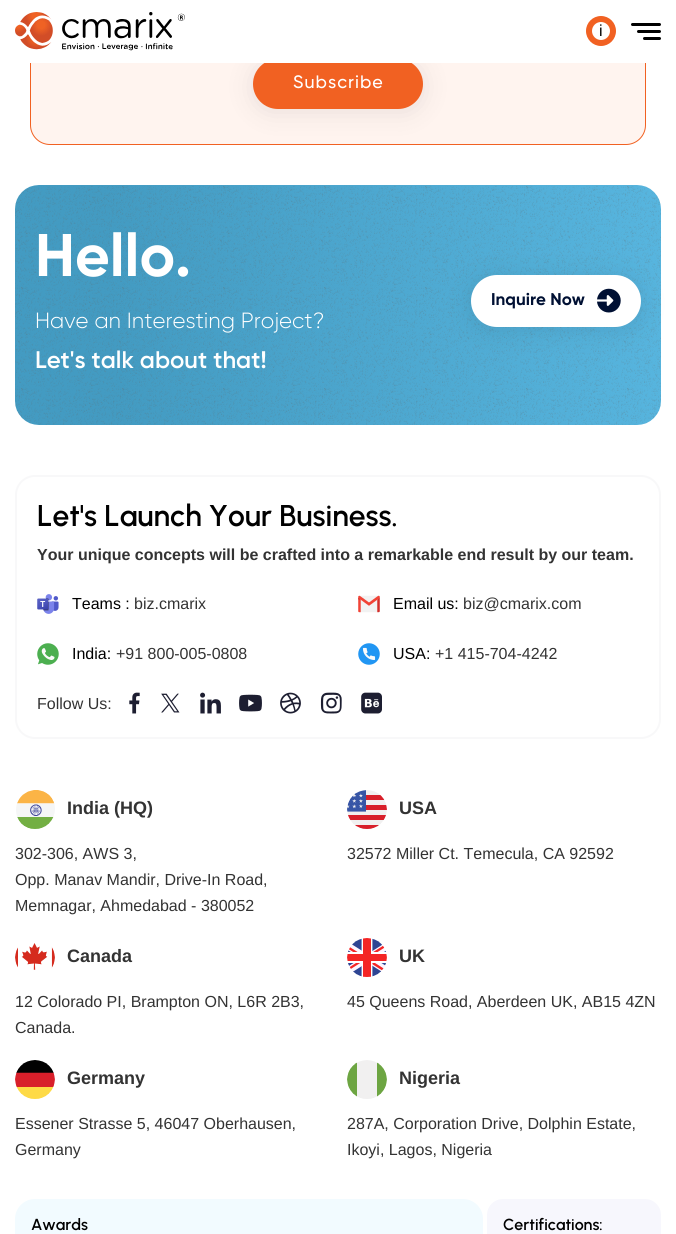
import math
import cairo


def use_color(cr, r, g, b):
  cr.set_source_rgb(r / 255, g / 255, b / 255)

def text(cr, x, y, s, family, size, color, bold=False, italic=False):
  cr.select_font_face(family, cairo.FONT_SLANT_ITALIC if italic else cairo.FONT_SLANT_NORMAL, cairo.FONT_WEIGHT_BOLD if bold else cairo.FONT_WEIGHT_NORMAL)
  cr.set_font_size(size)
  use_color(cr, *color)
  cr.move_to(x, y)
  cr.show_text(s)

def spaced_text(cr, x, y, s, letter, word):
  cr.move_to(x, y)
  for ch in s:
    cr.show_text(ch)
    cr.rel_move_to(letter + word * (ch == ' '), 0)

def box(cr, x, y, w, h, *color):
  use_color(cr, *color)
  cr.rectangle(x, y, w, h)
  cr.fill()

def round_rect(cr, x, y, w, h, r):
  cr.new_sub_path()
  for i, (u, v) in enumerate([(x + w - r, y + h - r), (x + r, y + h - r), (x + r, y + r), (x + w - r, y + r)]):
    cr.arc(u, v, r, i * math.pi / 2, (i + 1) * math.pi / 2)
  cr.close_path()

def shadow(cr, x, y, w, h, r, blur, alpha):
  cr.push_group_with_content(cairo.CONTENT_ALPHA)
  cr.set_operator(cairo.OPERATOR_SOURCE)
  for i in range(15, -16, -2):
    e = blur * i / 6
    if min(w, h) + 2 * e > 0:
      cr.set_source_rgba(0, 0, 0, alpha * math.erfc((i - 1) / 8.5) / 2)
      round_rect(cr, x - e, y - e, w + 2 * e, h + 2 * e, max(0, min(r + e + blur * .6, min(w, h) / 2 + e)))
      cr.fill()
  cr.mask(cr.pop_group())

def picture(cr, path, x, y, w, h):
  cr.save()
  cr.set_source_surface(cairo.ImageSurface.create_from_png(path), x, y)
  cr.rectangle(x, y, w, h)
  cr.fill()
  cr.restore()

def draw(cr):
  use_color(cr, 255, 255, 255)
  cr.paint()
  use_color(cr, 255, 244, 239)
  round_rect(cr, 30.5, -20.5, 615, 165, 19.5)
  cr.fill_preserve()
  use_color(cr, 241, 97, 34)
  cr.set_line_width(1)
  cr.stroke()
  use_color(cr, 0, 0, 0)
  shadow(cr, 253, 62, 170, 50, 25, 13, 0.09)
  use_color(cr, 241, 97, 34)
  round_rect(cr, 253, 59, 170, 50, 25)
  cr.fill()
  box(cr, 30, 0, 616, 63, 255, 255, 255)
  picture(cr, "img_01.png", 15, 12, 170, 39)
  use_color(cr, 241, 97, 34)
  cr.arc(601, 31, 15, 0, 2 * math.pi)
  cr.fill()
  use_color(cr, 255, 255, 255)
  cr.arc(601, 31, 9, 0, 2 * math.pi)
  cr.fill()
  use_color(cr, 0, 0, 0)
  round_rect(cr, 631, 23, 30, 3, 1.5)
  cr.fill()
  round_rect(cr, 637, 30, 24, 3, 1.5)
  cr.fill()
  round_rect(cr, 643, 37, 18, 3, 1.5)
  cr.fill()
  picture(cr, "img_02.png", 15, 185, 646, 240)
  use_color(cr, 0, 0, 0)
  shadow(cr, 471, 278, 170, 52, 26, 13, 0.09)
  use_color(cr, 255, 255, 255)
  round_rect(cr, 471, 275, 170, 52, 26)
  cr.fill()
  picture(cr, "img_03.png", 597, 288, 24, 25)
  round_rect(cr, 16, 476, 644, 262, 19)
  use_color(cr, 248, 248, 249)
  cr.set_line_width(2)
  cr.stroke()
  picture(cr, "img_04.png", 37, 594, 22, 20)
  picture(cr, "img_05.png", 358, 595, 22, 18)
  picture(cr, "img_06.png", 37, 643, 22, 22)
  picture(cr, "img_07.png", 358, 643, 22, 22)
  picture(cr, "img_08.png", 129, 692, 11, 22)
  picture(cr, "img_09.png", 161, 693, 19, 20)
  picture(cr, "img_10.png", 200, 692, 21, 22)
  picture(cr, "img_11.png", 239, 694, 23, 18)
  picture(cr, "img_12.png", 280, 692, 21, 22)
  picture(cr, "img_13.png", 320, 692, 22, 22)
  picture(cr, "img_14.png", 361, 692, 21, 22)
  picture(cr, "img_15.png", 16, 790, 39, 39)
  picture(cr, "img_16.png", 347, 790, 40, 39)
  picture(cr, "img_17.png", 15, 943, 40, 27)
  picture(cr, "img_18.png", 347, 938, 40, 39)
  picture(cr, "img_19.png", 15, 1060, 40, 39)
  picture(cr, "img_20.png", 347, 1060, 40, 39)
  use_color(cr, 242, 251, 255)
  round_rect(cr, 15, 1199, 468, 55, 20)
  cr.fill()
  use_color(cr, 247, 247, 253)
  round_rect(cr, 487, 1199, 174, 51, 16)
  cr.fill()
  text(cr, 599, 36, "i", "Liberation Sans", 16, (0, 0, 0))
  cr.select_font_face("Gilroy Medium")
  cr.set_font_size(18)
  use_color(cr, 255, 255, 255)
  spaced_text(cr, 293, 88, "Subscribe", 1, 0)
  text(cr, 35, 276, "Hello.", "Gilroy", 60, (255, 255, 255), bold=True)
  text(cr, 35, 328, "Have an Interesting Project?", "Gilroy Light", 22, (255, 255, 255))
  text(cr, 35, 368, "Let's talk about that!", "Gilroy SemiBold", 24, (255, 255, 255))
  text(cr, 491, 305, "Inquire Now", "Gilroy", 17, (0, 16, 51), bold=True)
  text(cr, 37, 526, "Let's Launch Your Business.", "Urbanist SemiBold", 30, (0, 0, 0))
  text(cr, 37, 560, "Your unique concepts will be crafted into a remarkable end result by our team.", "Liberation Sans", 16, (51, 51, 51), bold=True)
  text(cr, 72, 609, "Teams :", "Liberation Sans", 16, (0, 0, 0))
  text(cr, 134, 609, "biz.cmarix", "Liberation Sans", 16, (51, 51, 51))
  text(cr, 393, 609, "Email us:", "Liberation Sans", 16, (0, 0, 0))
  text(cr, 463, 609, "biz@cmarix.com", "Liberation Sans", 16, (51, 51, 51))
  text(cr, 72, 659, "India:", "Liberation Sans", 16, (0, 0, 0))
  text(cr, 116, 659, "+91 800-005-0808", "Liberation Sans", 16, (51, 51, 51))
  text(cr, 393, 659, "USA:", "Liberation Sans", 16, (0, 0, 0))
  text(cr, 435, 659, "+1 415-704-4242", "Liberation Sans", 16, (51, 51, 51))
  text(cr, 37, 709, "Follow Us:", "Liberation Sans", 16, (51, 51, 51))
  text(cr, 67, 814, "India (HQ)", "Liberation Sans", 18, (51, 51, 51), bold=True)
  text(cr, 15, 859, "302-306, AWS 3,", "Liberation Sans", 16, (51, 51, 51))
  text(cr, 15, 885, "Opp. Manav Mandir, Drive-In Road,", "Liberation Sans", 16, (51, 51, 51))
  text(cr, 15, 911, "Memnagar, Ahmedabad - 380052", "Liberation Sans", 16, (51, 51, 51))
  text(cr, 399, 814, "USA", "Liberation Sans", 18, (51, 51, 51), bold=True)
  text(cr, 347, 859, "32572 Miller Ct. Temecula, CA 92592", "Liberation Sans", 16, (51, 51, 51))
  text(cr, 67, 962, "Canada", "Liberation Sans", 18, (51, 51, 51), bold=True)
  text(cr, 15, 1007, "12 Colorado PI, Brampton ON, L6R 2B3,", "Liberation Sans", 16, (51, 51, 51))
  text(cr, 15, 1033, "Canada.", "Liberation Sans", 16, (51, 51, 51))
  text(cr, 399, 962, "UK", "Liberation Sans", 18, (51, 51, 51), bold=True)
  text(cr, 347, 1007, "45 Queens Road, Aberdeen UK, AB15 4ZN", "Liberation Sans", 16, (51, 51, 51))
  text(cr, 67, 1084, "Germany", "Liberation Sans", 18, (51, 51, 51), bold=True)
  text(cr, 15, 1129, "Essener Strasse 5, 46047 Oberhausen,", "Liberation Sans", 16, (51, 51, 51))
  text(cr, 15, 1155, "Germany", "Liberation Sans", 16, (51, 51, 51))
  text(cr, 399, 1084, "Nigeria", "Liberation Sans", 18, (51, 51, 51), bold=True)
  text(cr, 347, 1129, "287A, Corporation Drive, Dolphin Estate,", "Liberation Sans", 16, (51, 51, 51))
  text(cr, 347, 1155, "Ikoyi, Lagos, Nigeria", "Liberation Sans", 16, (51, 51, 51))
  text(cr, 31, 1230, "Awards", "Urbanist SemiBold", 16, (0, 0, 0))
  text(cr, 503, 1230, "Certifications:", "Urbanist SemiBold", 16, (0, 0, 0))


surface = cairo.ImageSurface(cairo.FORMAT_RGB24, 676, 1234)
cr = cairo.Context(surface)
options = cairo.FontOptions()
options.set_hint_metrics(cairo.HINT_METRICS_OFF)
options.set_hint_style(cairo.HINT_STYLE_NONE)
cr.set_font_options(options)
cr.set_miter_limit(4)
draw(cr)
surface.write_to_png("out.png")
